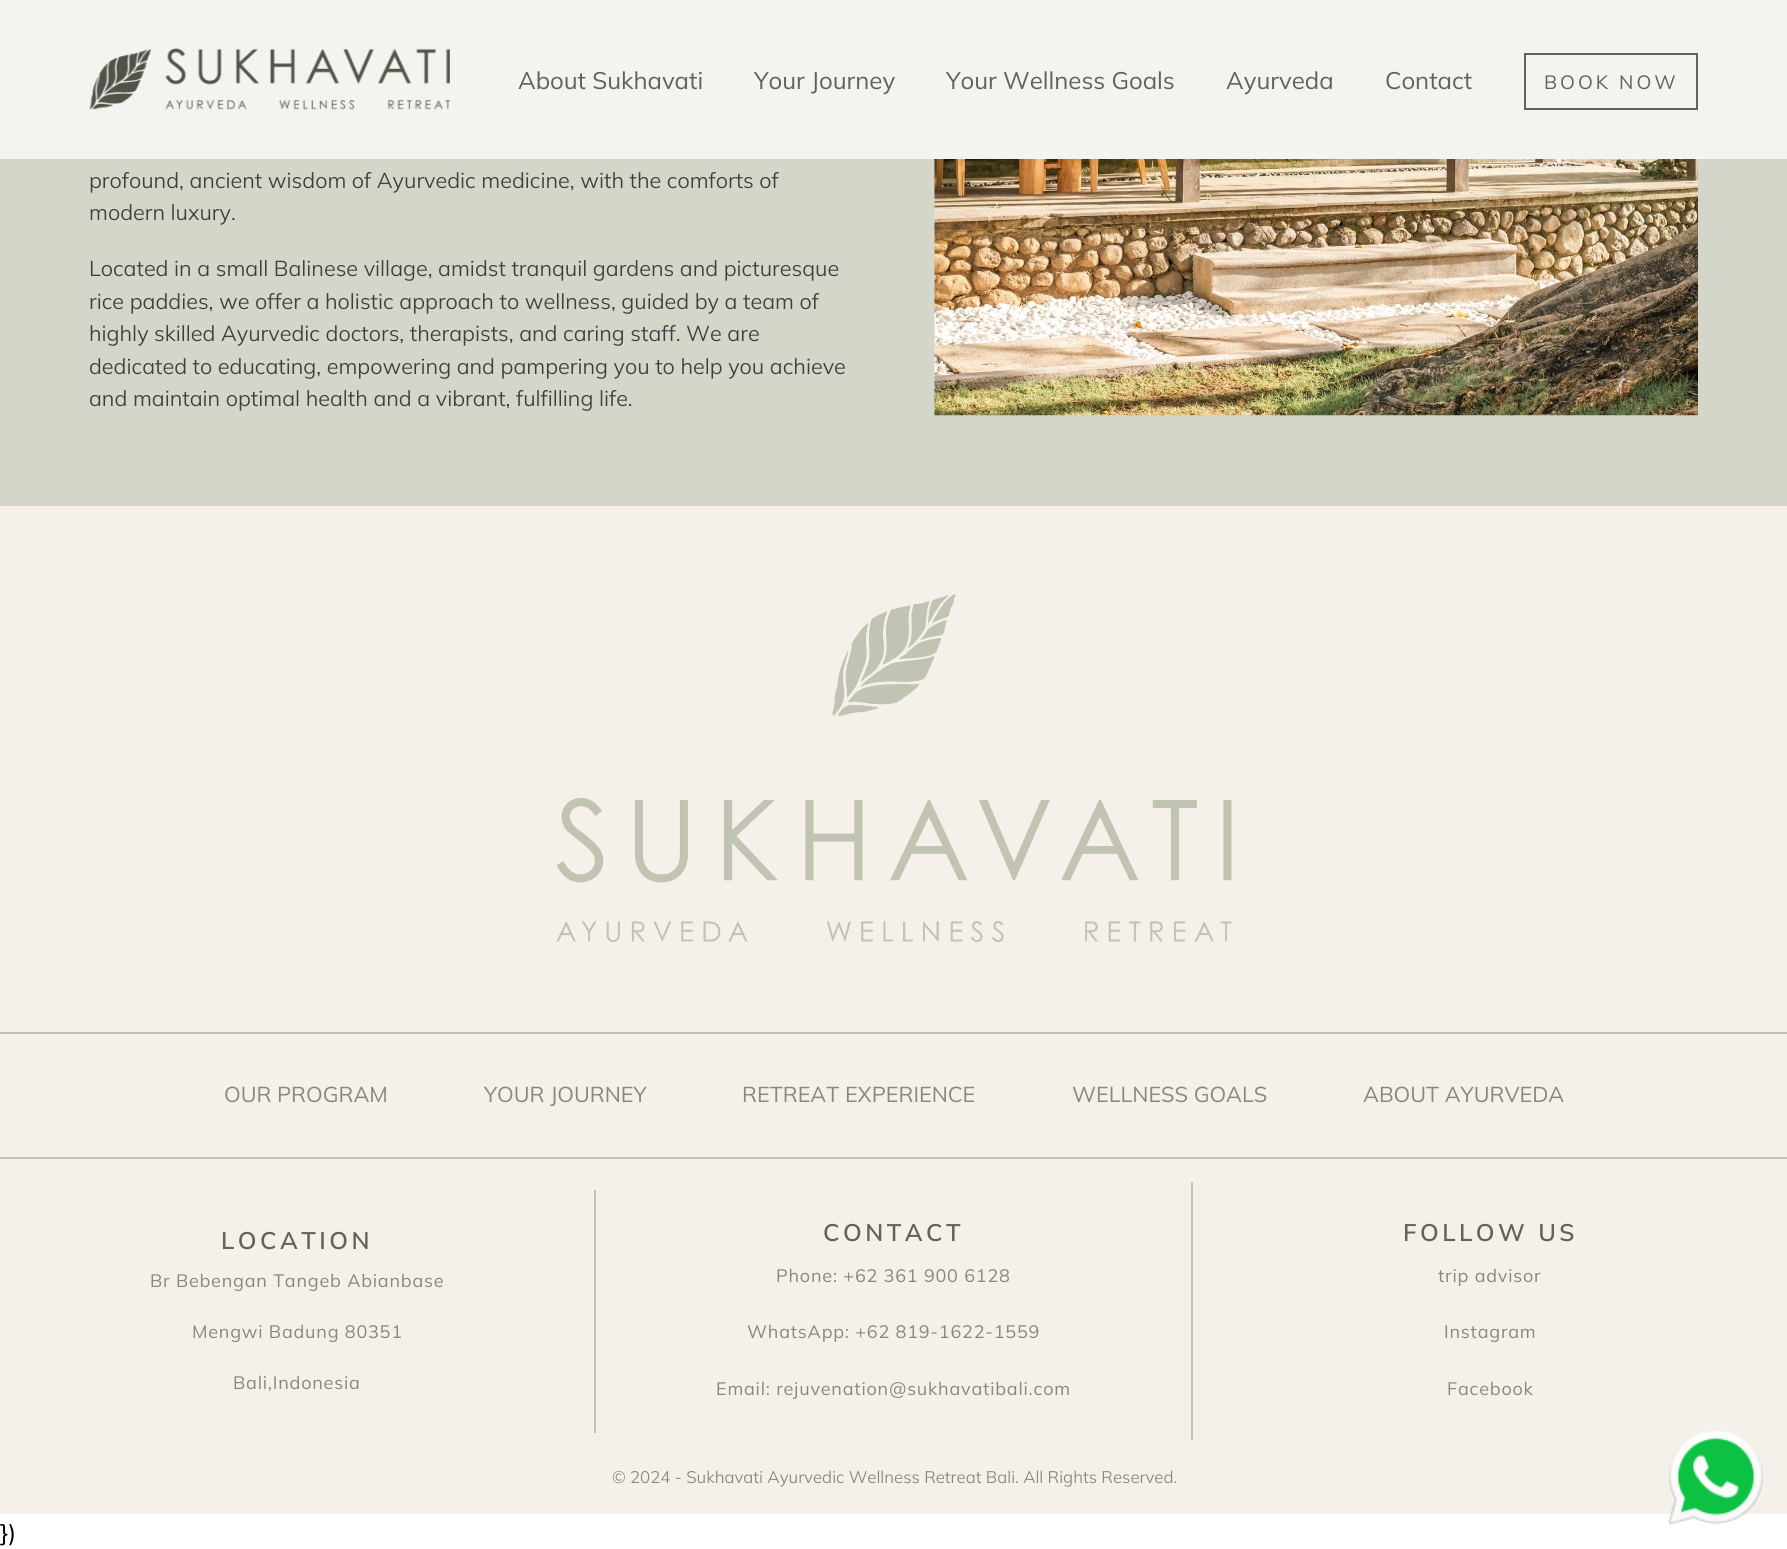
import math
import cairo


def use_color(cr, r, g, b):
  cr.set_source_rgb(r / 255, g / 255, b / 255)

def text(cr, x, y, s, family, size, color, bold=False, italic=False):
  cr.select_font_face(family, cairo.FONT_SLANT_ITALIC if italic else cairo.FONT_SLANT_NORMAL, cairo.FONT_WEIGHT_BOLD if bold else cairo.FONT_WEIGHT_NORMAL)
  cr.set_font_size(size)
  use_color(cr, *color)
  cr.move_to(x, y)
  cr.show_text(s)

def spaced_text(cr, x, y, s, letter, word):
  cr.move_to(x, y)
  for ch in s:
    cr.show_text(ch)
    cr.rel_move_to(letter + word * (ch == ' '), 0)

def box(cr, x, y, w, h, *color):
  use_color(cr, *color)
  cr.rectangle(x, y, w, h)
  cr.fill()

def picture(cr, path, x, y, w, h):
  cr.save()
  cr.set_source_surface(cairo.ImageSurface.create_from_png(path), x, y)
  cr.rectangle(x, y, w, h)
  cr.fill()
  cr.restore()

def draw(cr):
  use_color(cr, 255, 255, 255)
  cr.paint()
  box(cr, 0, 0, 1787, 159, 243, 243, 240)
  picture(cr, "img_01.png", 89, 48, 361, 62)
  cr.rectangle(1525, 54, 172, 55)
  use_color(cr, 97, 98, 90)
  cr.stroke()
  box(cr, 0, 159, 1787, 347, 212, 214, 202)
  picture(cr, "img_02.png", 934, 159, 764, 257)
  box(cr, 0, 506, 1787, 1008, 245, 240, 234)
  picture(cr, "img_03.png", 556, 594, 676, 348)
  box(cr, 0, 1032, 1787, 2, 193, 196, 179)
  box(cr, 0, 1157, 1787, 2, 193, 196, 179)
  box(cr, 594, 1190, 2, 243, 193, 196, 179)
  box(cr, 1191, 1182, 2, 258, 193, 196, 179)
  picture(cr, "img_04.png", 1668, 1431, 96, 94)
  text(cr, 518, 89, "About Sukhavati", "Mulish", 24, (97, 98, 90))
  text(cr, 754, 89, "Your Journey", "Mulish", 24, (97, 98, 90))
  text(cr, 946, 89, "Your Wellness Goals", "Mulish", 24, (97, 98, 90))
  text(cr, 1226, 89, "Ayurveda", "Mulish", 24, (97, 98, 90))
  text(cr, 1385, 89, "Contact", "Mulish", 24, (97, 98, 90))
  cr.set_font_size(19.25)
  spaced_text(cr, 1544, 89, "BOOK NOW", 3, 0)
  text(cr, 89, 188, "profound, ancient wisdom of Ayurvedic medicine, with the comforts of", "Mulish Light", 21.6, (62, 62, 62))
  text(cr, 89, 220, "modern luxury.", "Mulish Light", 21.6, (62, 62, 62))
  text(cr, 89, 276, "Located in a small Balinese village, amidst tranquil gardens and picturesque", "Mulish Light", 21.6, (62, 62, 62))
  text(cr, 89, 309, "rice paddies, we offer a holistic approach to wellness, guided by a team of", "Mulish Light", 21.6, (62, 62, 62))
  text(cr, 89, 341, "highly skilled Ayurvedic doctors, therapists, and caring staff. We are", "Mulish Light", 21.6, (62, 62, 62))
  text(cr, 89, 374, "dedicated to educating, empowering and pampering you to help you achieve", "Mulish Light", 21.6, (62, 62, 62))
  text(cr, 89, 406, "and maintain optimal health and a vibrant, fulfilling life.", "Mulish Light", 21.6, (62, 62, 62))
  text(cr, 224, 1102, "OUR PROGRAM", "Mulish", 21.6, (135, 137, 125))
  text(cr, 484, 1102, "YOUR JOURNEY", "Mulish", 21.6, (135, 137, 125))
  text(cr, 742, 1102, "RETREAT EXPERIENCE", "Mulish", 21.6, (135, 137, 125))
  text(cr, 1072, 1102, "WELLNESS GOALS", "Mulish", 21.6, (135, 137, 125))
  text(cr, 1363, 1102, "ABOUT AYURVEDA", "Mulish", 21.6, (135, 137, 125))
  cr.select_font_face("Mulish SemiBold")
  cr.set_font_size(24)
  use_color(cr, 97, 98, 90)
  spaced_text(cr, 221, 1249, "LOCATION", 3.5, 0)
  cr.select_font_face("Mulish")
  cr.set_font_size(18)
  use_color(cr, 135, 137, 125)
  spaced_text(cr, 150, 1287, "Br Bebengan Tangeb Abianbase", 0.8, 0)
  spaced_text(cr, 192, 1338, "Mengwi Badung 80351", 0.8, 0)
  spaced_text(cr, 233, 1389, "Bali,Indonesia", 0.8, 0)
  cr.select_font_face("Mulish SemiBold")
  cr.set_font_size(24)
  use_color(cr, 97, 98, 90)
  spaced_text(cr, 823, 1241, "CONTACT", 3.5, 0)
  cr.select_font_face("Mulish")
  cr.set_font_size(18)
  use_color(cr, 135, 137, 125)
  spaced_text(cr, 776, 1282, "Phone: +62 361 900 6128", 0.8, 0)
  spaced_text(cr, 747, 1338, "WhatsApp: +62 819-1622-1559", 0.8, 0)
  spaced_text(cr, 716, 1395, "Email: rejuvenation@sukhavatibali.com", 0.8, 0)
  cr.select_font_face("Mulish SemiBold")
  cr.set_font_size(24)
  use_color(cr, 97, 98, 90)
  spaced_text(cr, 1403, 1241, "FOLLOW US", 3.5, 0)
  cr.select_font_face("Mulish")
  cr.set_font_size(18)
  use_color(cr, 135, 137, 125)
  spaced_text(cr, 1438, 1282, "trip advisor", 0.8, 0)
  spaced_text(cr, 1444, 1338, "Instagram", 0.8, 0)
  spaced_text(cr, 1447, 1395, "Facebook", 0.8, 0)
  text(cr, 612, 1483, "© 2024 - Sukhavati Ayurvedic Wellness Retreat Bali. All Rights Reserved.", "Mulish Light", 16.8, (135, 137, 125))
  text(cr, 0, 1541, "})", "Mulish", 24, (0, 0, 0))


surface = cairo.ImageSurface(cairo.FORMAT_RGB24, 1787, 1549)
cr = cairo.Context(surface)
options = cairo.FontOptions()
options.set_hint_metrics(cairo.HINT_METRICS_OFF)
options.set_hint_style(cairo.HINT_STYLE_NONE)
cr.set_font_options(options)
cr.set_miter_limit(4)
draw(cr)
surface.write_to_png("out.png")
